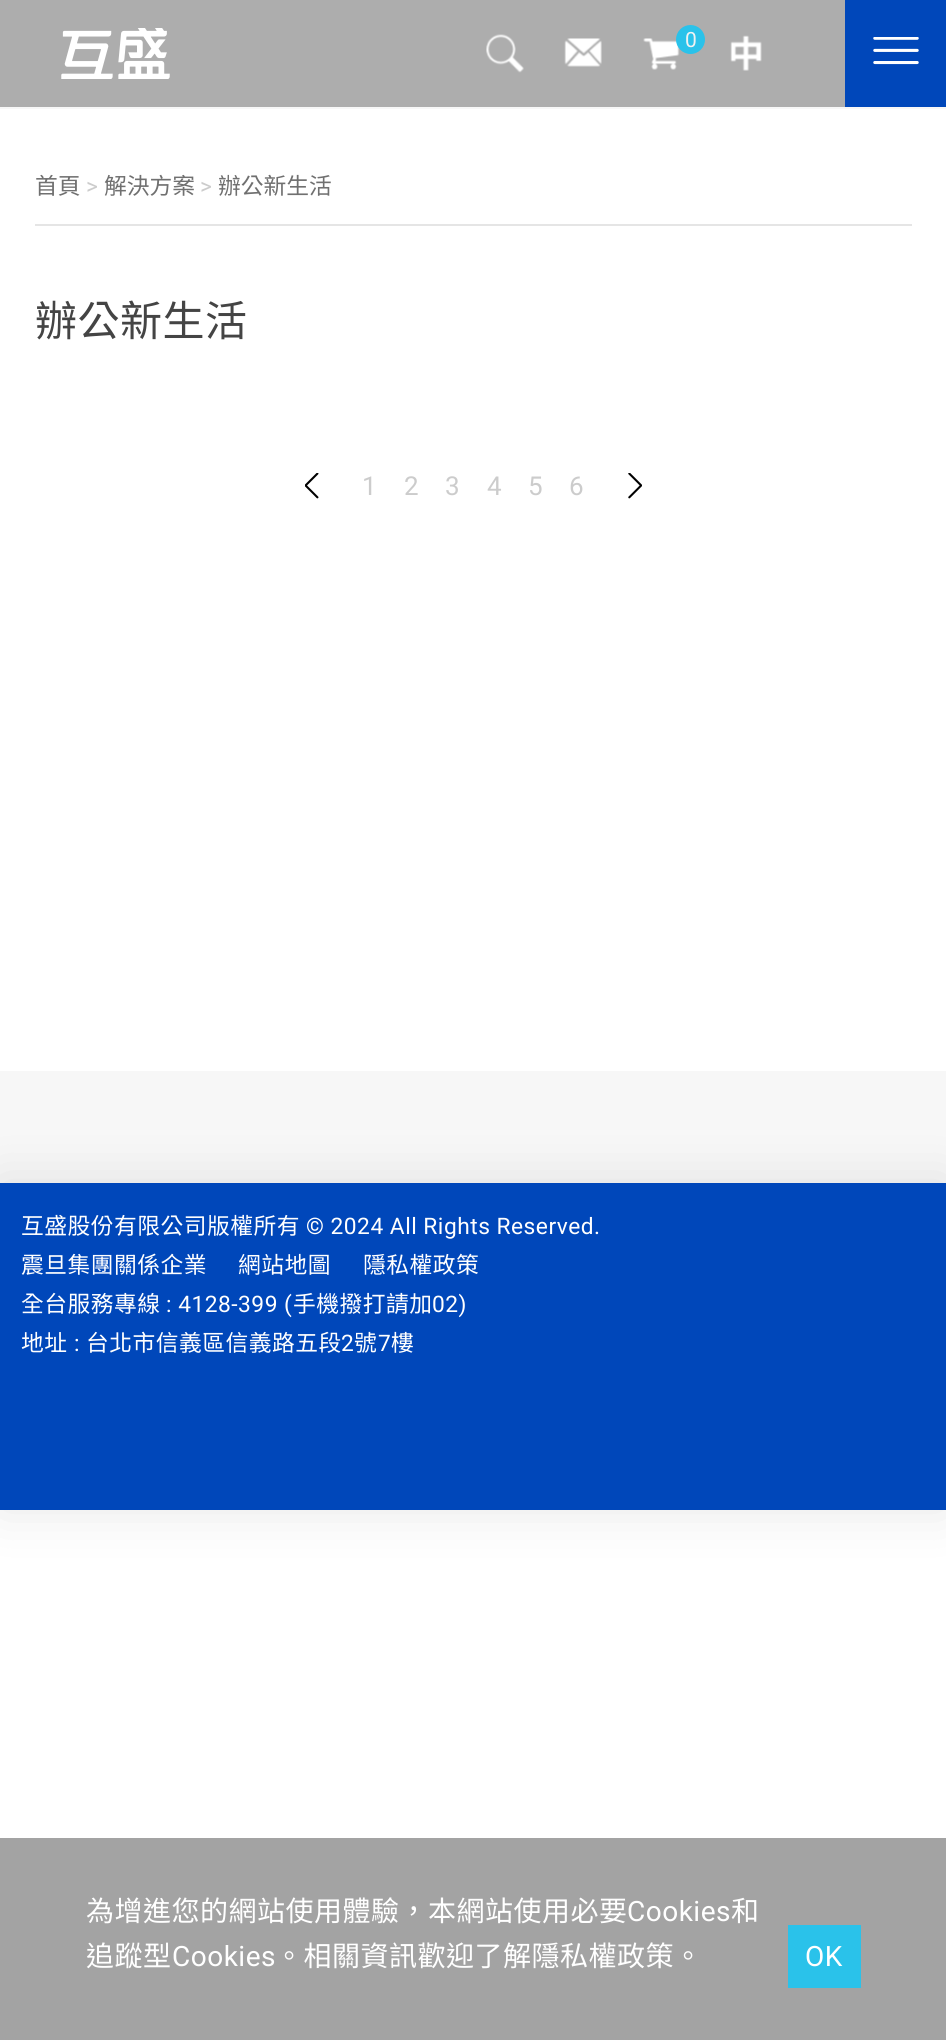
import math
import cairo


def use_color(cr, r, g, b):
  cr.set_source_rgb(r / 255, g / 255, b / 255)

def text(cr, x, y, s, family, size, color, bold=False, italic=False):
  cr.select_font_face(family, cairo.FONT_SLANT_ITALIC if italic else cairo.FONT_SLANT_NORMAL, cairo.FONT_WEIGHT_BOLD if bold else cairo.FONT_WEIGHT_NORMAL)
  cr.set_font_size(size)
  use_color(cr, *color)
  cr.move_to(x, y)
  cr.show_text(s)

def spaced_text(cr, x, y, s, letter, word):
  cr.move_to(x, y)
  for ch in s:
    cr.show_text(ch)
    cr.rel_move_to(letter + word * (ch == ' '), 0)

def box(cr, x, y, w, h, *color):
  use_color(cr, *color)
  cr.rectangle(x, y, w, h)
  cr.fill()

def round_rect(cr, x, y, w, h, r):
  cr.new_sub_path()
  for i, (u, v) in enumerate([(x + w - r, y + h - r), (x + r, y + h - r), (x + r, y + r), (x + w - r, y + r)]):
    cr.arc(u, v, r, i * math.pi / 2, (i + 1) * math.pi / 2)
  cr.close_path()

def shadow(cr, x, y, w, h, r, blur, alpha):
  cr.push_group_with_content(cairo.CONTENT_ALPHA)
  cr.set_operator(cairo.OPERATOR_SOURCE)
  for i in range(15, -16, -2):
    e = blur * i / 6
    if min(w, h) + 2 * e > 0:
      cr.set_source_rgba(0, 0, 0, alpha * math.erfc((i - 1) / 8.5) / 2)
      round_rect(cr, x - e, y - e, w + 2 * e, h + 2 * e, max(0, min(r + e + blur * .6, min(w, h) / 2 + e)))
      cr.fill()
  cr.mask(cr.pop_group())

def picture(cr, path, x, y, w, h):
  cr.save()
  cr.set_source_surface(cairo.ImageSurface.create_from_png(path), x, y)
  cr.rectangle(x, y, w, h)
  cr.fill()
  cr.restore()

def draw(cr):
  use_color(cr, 255, 255, 255)
  cr.paint()
  box(cr, 0, 0, 845, 107, 173, 173, 173)
  picture(cr, "img_01.png", 61, 28, 109, 51)
  picture(cr, "img_02.png", 486, 34, 38, 39)
  picture(cr, "img_03.png", 564, 38, 38, 29)
  picture(cr, "img_04.png", 643, 38, 37, 32)
  use_color(cr, 42, 194, 234)
  cr.arc(690.5, 39.5, 14.5, 0, 2 * math.pi)
  cr.fill()
  picture(cr, "img_05.png", 730, 35, 32, 36)
  box(cr, 845, 0, 101, 107, 0, 71, 186)
  picture(cr, "img_06.png", 873, 37, 46, 28)
  box(cr, 0, 107, 946, 1076, 247, 247, 247)
  box(cr, 0, 109, 946, 962, 255, 255, 255)
  box(cr, 35, 224, 877, 2, 229, 229, 229)
  picture(cr, "img_07.png", 305, 473, 14, 26)
  picture(cr, "img_08.png", 628, 473, 14, 26)
  use_color(cr, 0, 0, 0)
  shadow(cr, 0, 1183, 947, 327, 0, 26, 0.1)
  box(cr, 0, 1183, 946, 327, 0, 71, 186)
  box(cr, 0, 1838, 946, 202, 163, 163, 163)
  box(cr, 788, 1925, 73, 63, 42, 194, 234)
  text(cr, 685, 47, "0", "Roboto", 21, (242, 242, 242))
  text(cr, 35, 194, "首頁", "Noto Sans TC", 22.75, (112, 112, 112))
  text(cr, 86, 194, ">", "Roboto", 22.75, (204, 204, 204))
  text(cr, 104, 194, "解決方案", "Noto Sans TC", 22.75, (112, 112, 112))
  text(cr, 200, 194, ">", "Roboto", 22.75, (204, 204, 204))
  text(cr, 218, 194, "辦公新生活", "Noto Sans TC", 22.75, (112, 112, 112))
  cr.set_font_size(42)
  use_color(cr, 68, 68, 68)
  spaced_text(cr, 35, 336, "辦公新生活", 0.5, 0)
  cr.select_font_face("Roboto")
  cr.set_font_size(26)
  use_color(cr, 204, 204, 204)
  spaced_text(cr, 362, 495, "1", 0.5, 0)
  spaced_text(cr, 404, 495, "2", 0.5, 0)
  spaced_text(cr, 445, 495, "3", 0.5, 0)
  spaced_text(cr, 487, 495, "4", 0.5, 0)
  spaced_text(cr, 528, 495, "5", 0.5, 0)
  spaced_text(cr, 569, 495, "6", 0.5, 0)
  cr.select_font_face("Noto Sans TC")
  cr.set_font_size(22.75)
  use_color(cr, 255, 255, 255)
  spaced_text(cr, 21, 1234, "互盛股份有限公司版權所有", 0.5, 0)
  cr.select_font_face("Roboto")
  spaced_text(cr, 306, 1234, "© 2024 All Rights Reserved.", 0.5, 0)
  cr.select_font_face("Noto Sans TC")
  spaced_text(cr, 21, 1273, "震旦集團關係企業", 0.5, 0)
  spaced_text(cr, 238, 1273, "網站地圖", 0.5, 0)
  spaced_text(cr, 363, 1273, "隱私權政策", 0.5, 0)
  spaced_text(cr, 21, 1312, "全台服務專線", 0.5, 0)
  cr.select_font_face("Roboto")
  spaced_text(cr, 166, 1312, ": 4128-399 (", 0.5, 0)
  cr.select_font_face("Noto Sans TC")
  spaced_text(cr, 293, 1312, "手機撥打請加", 0.5, 0)
  cr.select_font_face("Roboto")
  spaced_text(cr, 432, 1312, "02)", 0.5, 0)
  cr.select_font_face("Noto Sans TC")
  spaced_text(cr, 21, 1351, "地址", 0.5, 0)
  cr.select_font_face("Roboto")
  spaced_text(cr, 74, 1351, ":", 0.5, 0)
  cr.select_font_face("Noto Sans TC")
  spaced_text(cr, 86, 1351, "台北市信義區信義路五段", 0.5, 0)
  cr.select_font_face("Roboto")
  spaced_text(cr, 341, 1351, "2", 0.5, 0)
  cr.select_font_face("Noto Sans TC")
  spaced_text(cr, 354, 1351, "號", 0.5, 0)
  cr.select_font_face("Roboto")
  spaced_text(cr, 378, 1351, "7", 0.5, 0)
  cr.select_font_face("Noto Sans TC")
  spaced_text(cr, 391, 1351, "樓", 0.5, 0)
  cr.set_font_size(28)
  spaced_text(cr, 86, 1921, "為增進您的網站使用體驗，本網站使用必要", 0.5, 0)
  cr.select_font_face("Roboto")
  spaced_text(cr, 627, 1921, "Cookies", 0.5, 0)
  cr.select_font_face("Noto Sans TC")
  spaced_text(cr, 731, 1921, "和", 0.5, 0)
  spaced_text(cr, 86, 1966, "追蹤型", 0.5, 0)
  cr.select_font_face("Roboto")
  spaced_text(cr, 172, 1966, "Cookies", 0.5, 0)
  cr.select_font_face("Noto Sans TC")
  spaced_text(cr, 275, 1966, "。相關資訊歡迎了解隱私權政策。", 0.5, 0)
  cr.select_font_face("Roboto")
  spaced_text(cr, 805, 1966, "OK", 0.5, 0)


surface = cairo.ImageSurface(cairo.FORMAT_RGB24, 946, 2040)
cr = cairo.Context(surface)
options = cairo.FontOptions()
options.set_hint_metrics(cairo.HINT_METRICS_OFF)
options.set_hint_style(cairo.HINT_STYLE_NONE)
cr.set_font_options(options)
cr.set_miter_limit(4)
draw(cr)
surface.write_to_png("out.png")
